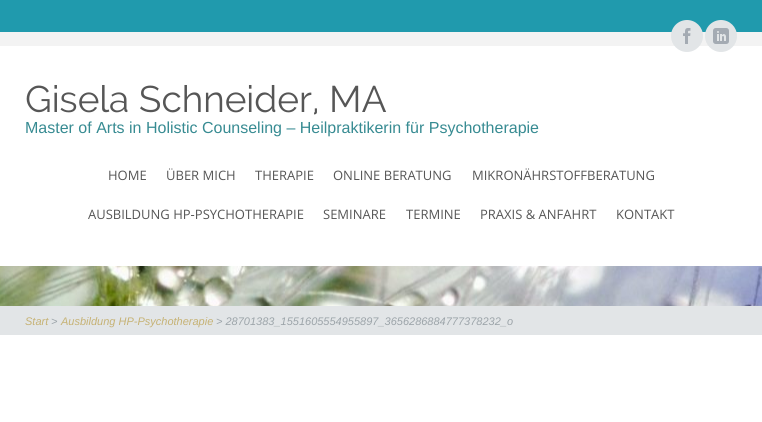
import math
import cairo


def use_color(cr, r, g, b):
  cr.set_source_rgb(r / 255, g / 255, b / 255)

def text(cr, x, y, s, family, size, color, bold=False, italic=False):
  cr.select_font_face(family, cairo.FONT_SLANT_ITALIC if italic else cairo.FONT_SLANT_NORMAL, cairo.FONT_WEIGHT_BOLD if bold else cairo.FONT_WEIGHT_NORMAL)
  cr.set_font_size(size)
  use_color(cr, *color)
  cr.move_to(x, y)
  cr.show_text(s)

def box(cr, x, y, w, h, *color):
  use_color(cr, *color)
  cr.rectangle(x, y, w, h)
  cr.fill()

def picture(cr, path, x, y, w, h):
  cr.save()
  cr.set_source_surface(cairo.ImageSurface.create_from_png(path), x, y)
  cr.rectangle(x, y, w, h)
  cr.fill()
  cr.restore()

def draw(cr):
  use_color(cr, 255, 255, 255)
  cr.paint()
  box(cr, 0, 0, 762, 32, 32, 154, 173)
  box(cr, 0, 32, 762, 14, 243, 243, 243)
  use_color(cr, 226, 229, 231)
  cr.arc(687, 36, 16, 0, 2 * math.pi)
  cr.fill()
  picture(cr, "img_01.png", 683, 28, 8, 16)
  cr.arc(721, 36, 16, 0, 2 * math.pi)
  cr.fill()
  picture(cr, "img_02.png", 713, 28, 16, 16)
  picture(cr, "img_03.png", 0, 266, 762, 40)
  box(cr, 0, 306, 762, 29, 226, 229, 231)
  text(cr, 25, 112, "Gisela Schneider, MA", "Raleway", 37, (86, 86, 86))
  text(cr, 25, 133, "Master of Arts in Holistic Counseling – Heilpraktikerin für Psychotherapie", "Liberation Sans", 16, (55, 139, 146))
  text(cr, 108, 180, "HOME", "Open Sans", 13, (86, 86, 86))
  text(cr, 166, 180, "ÜBER MICH", "Open Sans", 13, (86, 86, 86))
  text(cr, 255, 180, "THERAPIE", "Open Sans", 13, (86, 86, 86))
  text(cr, 333, 180, "ONLINE BERATUNG", "Open Sans", 13, (86, 86, 86))
  text(cr, 472, 180, "MIKRONÄHRSTOFFBERATUNG", "Open Sans", 13, (86, 86, 86))
  text(cr, 88, 219, "AUSBILDUNG HP-PSYCHOTHERAPIE", "Open Sans", 13, (86, 86, 86))
  text(cr, 323, 219, "SEMINARE", "Open Sans", 13, (86, 86, 86))
  text(cr, 406, 219, "TERMINE", "Open Sans", 13, (86, 86, 86))
  text(cr, 480, 219, "PRAXIS & ANFAHRT", "Open Sans", 13, (86, 86, 86))
  text(cr, 616, 219, "KONTAKT", "Open Sans", 13, (86, 86, 86))
  text(cr, 25, 325, "Start", "Liberation Sans", 11, (198, 178, 116), italic=True)
  text(cr, 51, 325, ">", "Liberation Sans", 11, (156, 164, 169), italic=True)
  text(cr, 61, 325, "Ausbildung HP-Psychotherapie", "Liberation Sans", 11, (198, 178, 116), italic=True)
  text(cr, 216, 325, "> 28701383_1551605554955897_3656286884777378232_o", "Liberation Sans", 11, (156, 164, 169), italic=True)


surface = cairo.ImageSurface(cairo.FORMAT_RGB24, 762, 422)
cr = cairo.Context(surface)
options = cairo.FontOptions()
options.set_hint_metrics(cairo.HINT_METRICS_OFF)
options.set_hint_style(cairo.HINT_STYLE_NONE)
cr.set_font_options(options)
cr.set_miter_limit(4)
draw(cr)
surface.write_to_png("out.png")
